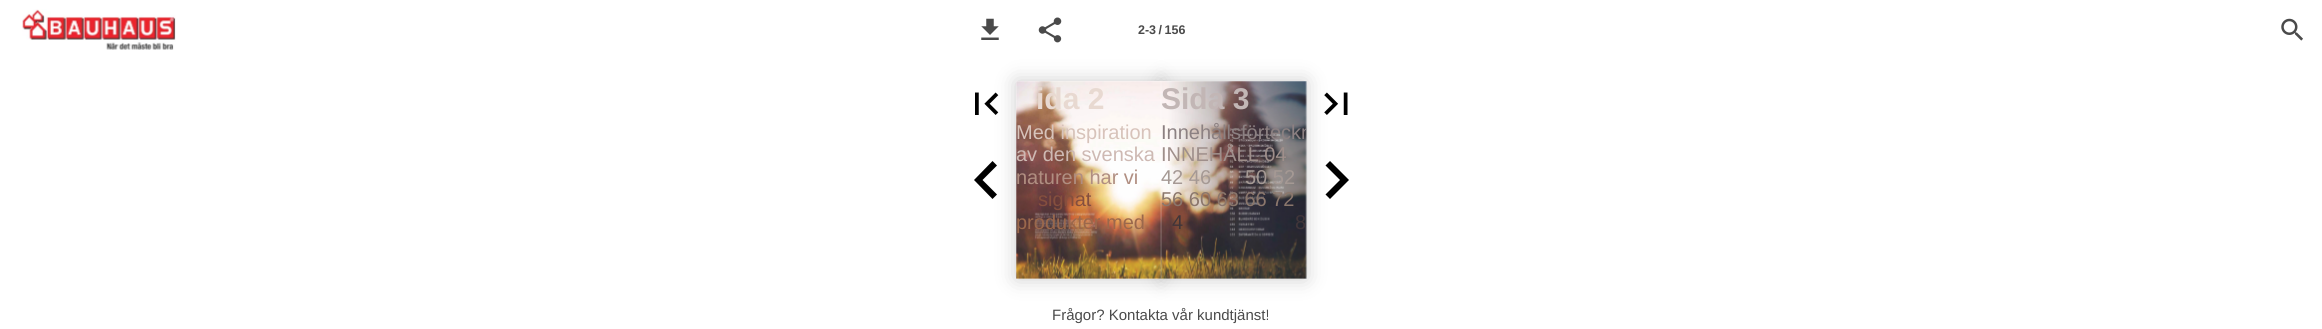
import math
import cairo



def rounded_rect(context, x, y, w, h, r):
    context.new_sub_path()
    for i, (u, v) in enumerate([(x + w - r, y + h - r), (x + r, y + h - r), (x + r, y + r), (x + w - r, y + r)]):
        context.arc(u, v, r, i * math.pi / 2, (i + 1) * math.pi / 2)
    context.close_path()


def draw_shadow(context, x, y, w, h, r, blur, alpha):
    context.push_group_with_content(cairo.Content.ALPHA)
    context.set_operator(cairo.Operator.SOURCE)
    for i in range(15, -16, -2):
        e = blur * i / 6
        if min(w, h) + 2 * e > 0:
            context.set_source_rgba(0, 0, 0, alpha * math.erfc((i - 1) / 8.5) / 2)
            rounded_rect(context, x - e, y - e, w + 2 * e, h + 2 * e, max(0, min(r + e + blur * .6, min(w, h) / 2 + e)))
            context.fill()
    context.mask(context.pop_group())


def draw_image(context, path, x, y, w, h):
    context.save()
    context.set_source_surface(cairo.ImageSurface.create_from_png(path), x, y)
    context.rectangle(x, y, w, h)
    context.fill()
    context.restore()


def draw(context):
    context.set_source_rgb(1, 1, 1)
    context.paint()
    draw_image(context, "images/1.png", 22, 9, 154, 41)
    draw_image(context, "images/2.png", 981, 18, 18, 22)
    draw_image(context, "images/3.png", 1038, 17, 24, 26)
    draw_image(context, "images/4.png", 2281, 18, 22, 23)
    context.set_source_rgb(0, 0, 0)
    draw_shadow(context, 1016, 81, 145, 198, 0, 10, 0.2)
    draw_image(context, "images/5.png", 975, 92, 24, 23)
    context.set_source_rgb(0, 0, 0)
    context.new_path()
    context.move_to(997, 165.5)
    context.line_to(992.5, 161)
    context.line_to(974, 180)
    context.line_to(992.5, 199)
    context.line_to(997, 194.5)
    context.line_to(982.5, 180)
    context.close_path()
    context.fill()
    context.set_source_rgb(0, 0, 0)
    draw_shadow(context, 1161, 81, 145, 198, 0, 10, 0.2)
    context.set_source_rgb(1, 1, 1)
    context.rectangle(1016, 81, 290, 198)
    context.fill()
    draw_image(context, "images/6.png", 1016, 81, 146, 198)
    draw_image(context, "images/7.png", 1161, 81, 146, 198)
    draw_image(context, "images/8.png", 1324, 92, 24, 23)
    context.set_source_rgb(0, 0, 0)
    context.new_path()
    context.move_to(1330, 161)
    context.line_to(1325.5, 165.5)
    context.line_to(1340, 180)
    context.line_to(1325.5, 194.5)
    context.line_to(1330, 199)
    context.line_to(1349, 180)
    context.close_path()
    context.fill()
    context.select_font_face("Liberation Sans", cairo.FontSlant.NORMAL, cairo.FontWeight.BOLD)
    context.set_font_size(12.5)
    context.set_source_rgb(74 / 255, 74 / 255, 74 / 255)
    context.move_to(1138, 34)
    context.show_text("2-3 / 156")
    context.set_font_size(30)
    context.set_source_rgb(232 / 255, 217 / 255, 209 / 255)
    context.move_to(1036, 109)
    context.show_text("ida 2")
    context.select_font_face("Liberation Sans")
    context.set_font_size(20)
    context.set_source_rgb(215 / 255, 195 / 255, 186 / 255)
    context.move_to(1016, 139)
    context.show_text("Med inspiration")
    context.set_source_rgb(206 / 255, 185 / 255, 179 / 255)
    context.move_to(1016, 161)
    context.show_text("av den svenska")
    context.set_source_rgb(176 / 255, 142 / 255, 129 / 255)
    context.move_to(1016, 184)
    context.show_text("naturen har vi")
    context.set_source_rgb(133 / 255, 79 / 255, 62 / 255)
    context.move_to(1038, 206)
    context.show_text("signat")
    context.set_source_rgb(155 / 255, 104 / 255, 76 / 255)
    context.move_to(1016, 229)
    context.show_text("produkter med")
    context.select_font_face("Liberation Sans", cairo.FontSlant.NORMAL, cairo.FontWeight.BOLD)
    context.set_font_size(30)
    context.set_source_rgb(194 / 255, 182 / 255, 181 / 255)
    context.move_to(1161, 109)
    context.show_text("Sida 3")
    context.save()
    context.rectangle(1016, 81, 290, 198)
    context.clip()
    context.select_font_face("Liberation Sans")
    context.set_font_size(20)
    context.set_source_rgb(140 / 255, 129 / 255, 130 / 255)
    context.move_to(1161, 139)
    context.show_text("Innehållsförteckn")
    context.restore()
    context.select_font_face("Liberation Sans")
    context.set_font_size(20)
    context.set_source_rgb(159 / 255, 143 / 255, 139 / 255)
    context.move_to(1161, 161)
    context.show_text("INNEHÅLL 04")
    context.set_source_rgb(165 / 255, 153 / 255, 148 / 255)
    context.move_to(1161, 184)
    context.show_text("42 46")
    context.move_to(1245, 184)
    context.show_text("50 52")
    context.set_source_rgb(139 / 255, 119 / 255, 108 / 255)
    context.move_to(1161, 206)
    context.show_text("56 60 63 66 72")
    context.set_source_rgb(64 / 255, 53 / 255, 57 / 255)
    context.move_to(1172, 229)
    context.show_text("4")
    context.move_to(1295, 229)
    context.show_text("8")
    context.set_font_size(15)
    context.set_source_rgb(74 / 255, 74 / 255, 74 / 255)
    context.move_to(1052, 320)
    context.show_text("Frågor? Kontakta vår kundtjänst!")


surface = cairo.ImageSurface(cairo.Format.RGB24, 2322, 329)
context = cairo.Context(surface)
options = cairo.FontOptions()
options.set_hint_metrics(cairo.HintMetrics.OFF)
options.set_hint_style(cairo.HintStyle.NONE)
context.set_font_options(options)
context.set_miter_limit(4)
draw(context)
surface.write_to_png("out.png")
